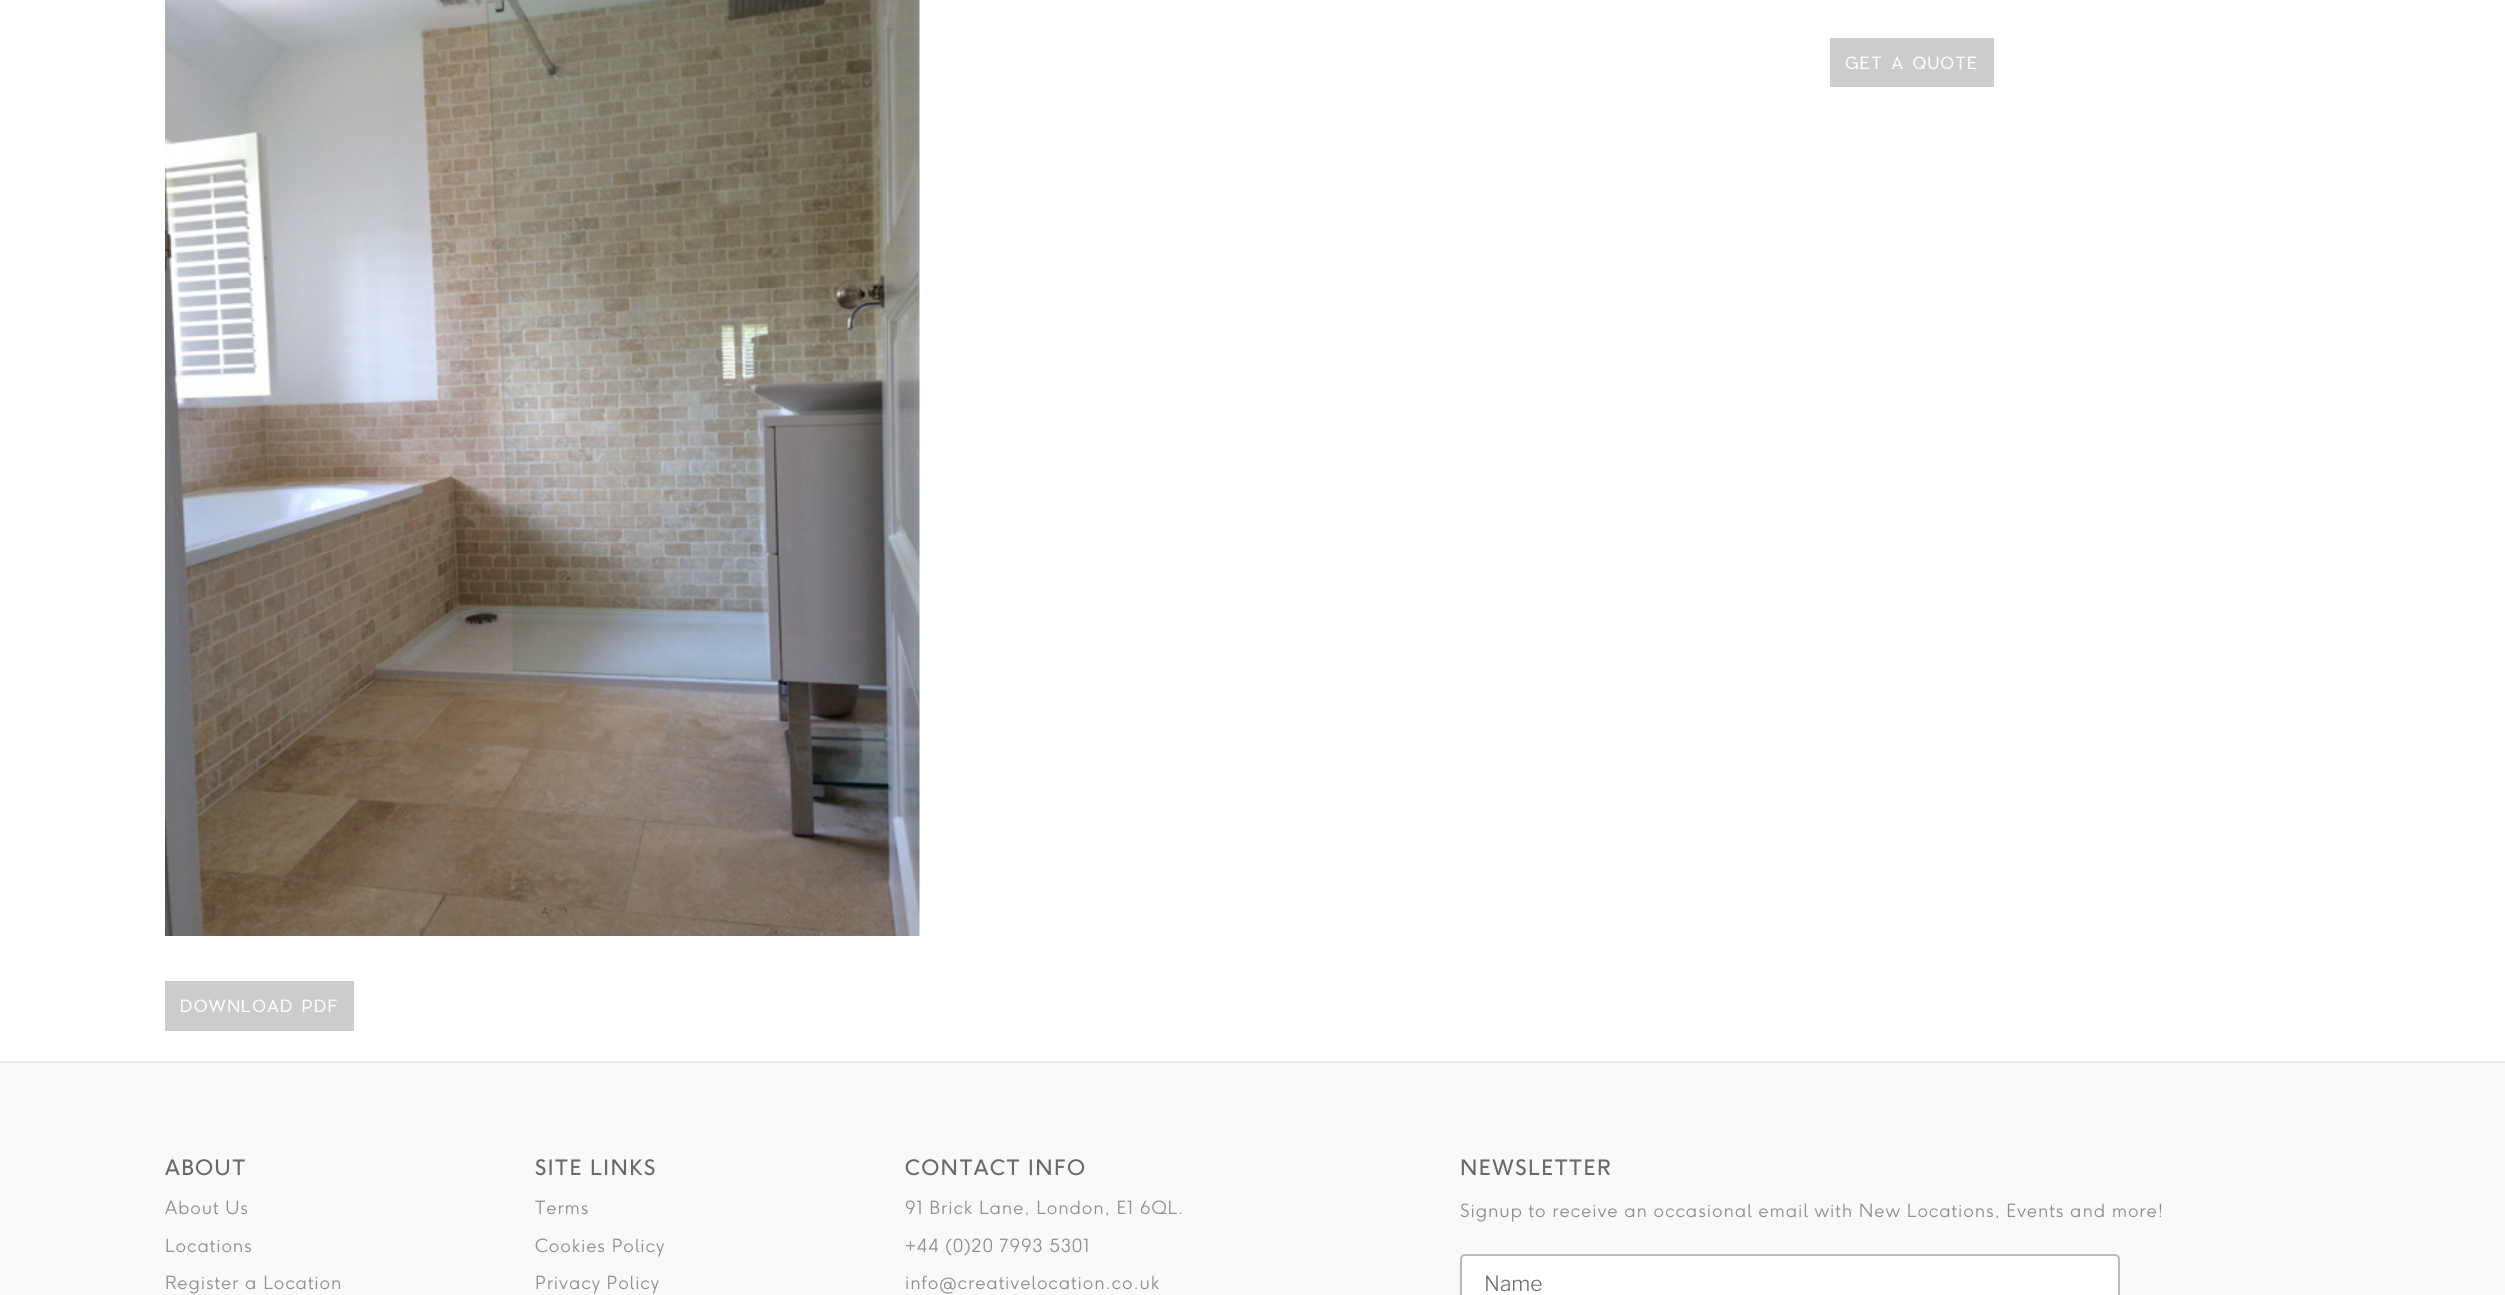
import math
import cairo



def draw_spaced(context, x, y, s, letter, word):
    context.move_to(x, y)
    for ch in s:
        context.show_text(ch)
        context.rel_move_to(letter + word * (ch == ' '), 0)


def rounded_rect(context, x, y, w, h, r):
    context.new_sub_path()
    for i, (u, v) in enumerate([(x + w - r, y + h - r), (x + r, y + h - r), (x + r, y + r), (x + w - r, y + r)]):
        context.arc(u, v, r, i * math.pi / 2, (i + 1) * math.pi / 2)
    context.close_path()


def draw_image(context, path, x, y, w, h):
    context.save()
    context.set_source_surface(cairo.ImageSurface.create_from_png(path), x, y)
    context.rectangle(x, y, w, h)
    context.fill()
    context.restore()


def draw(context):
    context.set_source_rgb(1, 1, 1)
    context.paint()
    context.set_source_rgb(204 / 255, 204 / 255, 204 / 255)
    context.rectangle(1830, 38, 164, 49)
    context.fill()
    draw_image(context, "images/1.png", 165, 0, 755, 936)
    context.rectangle(165, 981, 189, 50)
    context.fill()
    context.set_source_rgb(249 / 255, 249 / 255, 249 / 255)
    context.rectangle(0, 1063, 2505, 232)
    context.fill()
    context.set_source_rgb(237 / 255, 237 / 255, 237 / 255)
    context.rectangle(0, 1061, 2505, 2)
    context.fill()
    context.set_source_rgb(1, 1, 1)
    rounded_rect(context, 1461, 1255, 658, 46, 4)
    context.fill_preserve()
    context.set_source_rgb(187 / 255, 187 / 255, 187 / 255)
    context.stroke()
    context.select_font_face("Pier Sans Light")
    context.set_font_size(16.5)
    context.set_source_rgb(1, 1, 1)
    draw_spaced(context, 1845, 69, "GET A QUOTE", 1.5, 0)
    draw_spaced(context, 180, 1012, "DOWNLOAD PDF", 1.5, 0)
    context.select_font_face("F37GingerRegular")
    context.set_font_size(21)
    context.set_source_rgb(105 / 255, 105 / 255, 105 / 255)
    draw_spaced(context, 165, 1175, "ABOUT", 1.5, 0)
    context.select_font_face("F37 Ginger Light")
    context.set_font_size(18)
    context.set_source_rgb(143 / 255, 143 / 255, 143 / 255)
    draw_spaced(context, 165, 1214, "About Us", 0.9, 0)
    draw_spaced(context, 165, 1252, "Locations", 0.9, 0)
    draw_spaced(context, 165, 1289, "Register a Location", 0.9, 0)
    context.select_font_face("F37GingerRegular")
    context.set_font_size(21)
    context.set_source_rgb(105 / 255, 105 / 255, 105 / 255)
    draw_spaced(context, 535, 1175, "SITE LINKS", 1.5, 0)
    context.select_font_face("F37 Ginger Light")
    context.set_font_size(18)
    context.set_source_rgb(143 / 255, 143 / 255, 143 / 255)
    draw_spaced(context, 535, 1214, "Terms", 0.9, 0)
    draw_spaced(context, 535, 1252, "Cookies Policy", 0.9, 0)
    draw_spaced(context, 535, 1289, "Privacy Policy", 0.9, 0)
    context.select_font_face("F37GingerRegular")
    context.set_font_size(21)
    context.set_source_rgb(105 / 255, 105 / 255, 105 / 255)
    draw_spaced(context, 905, 1175, "CONTACT INFO", 1.5, 0)
    context.select_font_face("F37 Ginger Light")
    context.set_font_size(18)
    context.set_source_rgb(143 / 255, 143 / 255, 143 / 255)
    draw_spaced(context, 905, 1214, "91 Brick Lane, London, E1 6QL.", 0.9, 0)
    draw_spaced(context, 905, 1252, "+44 (0)20 7993 5301", 0.9, 0)
    draw_spaced(context, 905, 1289, "info@creativelocation.co.uk", 0.9, 0)
    context.select_font_face("F37GingerRegular")
    context.set_font_size(21)
    context.set_source_rgb(105 / 255, 105 / 255, 105 / 255)
    draw_spaced(context, 1460, 1175, "NEWSLETTER", 1.5, 0)
    context.select_font_face("F37 Ginger Light")
    context.set_font_size(18)
    context.set_source_rgb(143 / 255, 143 / 255, 143 / 255)
    draw_spaced(context, 1460, 1217, "Signup to receive an occasional email with New Locations, Events and more!", 0.9, 0)
    context.select_font_face("Libre Franklin Thin")
    context.set_font_size(21)
    context.set_source_rgb(105 / 255, 105 / 255, 105 / 255)
    context.move_to(1484, 1291)
    context.show_text("Name")


surface = cairo.ImageSurface(cairo.Format.RGB24, 2505, 1295)
context = cairo.Context(surface)
options = cairo.FontOptions()
options.set_hint_metrics(cairo.HintMetrics.OFF)
options.set_hint_style(cairo.HintStyle.NONE)
context.set_font_options(options)
context.set_miter_limit(4)
draw(context)
surface.write_to_png("out.png")
